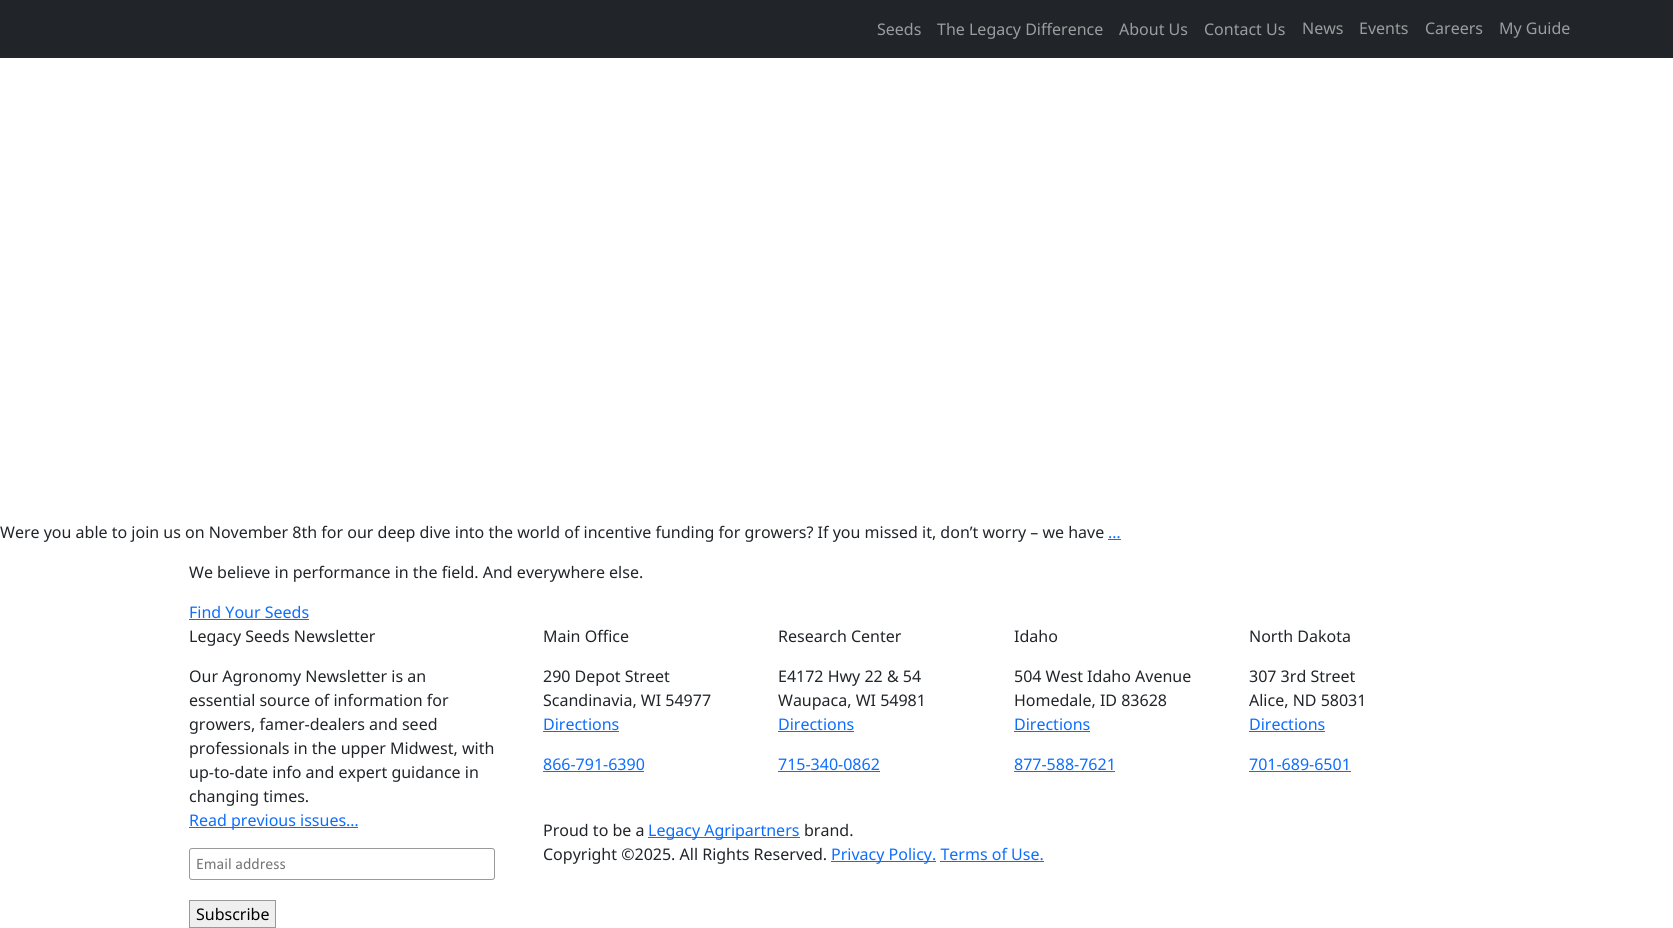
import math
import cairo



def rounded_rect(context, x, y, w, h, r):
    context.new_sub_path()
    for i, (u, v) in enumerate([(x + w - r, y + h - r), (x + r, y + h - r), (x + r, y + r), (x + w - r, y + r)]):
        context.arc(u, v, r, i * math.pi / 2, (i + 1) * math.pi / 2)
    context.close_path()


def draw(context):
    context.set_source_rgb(1, 1, 1)
    context.paint()
    context.set_source_rgb(33 / 255, 37 / 255, 41 / 255)
    context.rectangle(0, 0, 1673, 58)
    context.fill()
    context.set_source_rgb(13 / 255, 110 / 255, 253 / 255)
    context.rectangle(1108, 539, 13, 1)
    context.fill()
    context.rectangle(189, 619, 120, 1)
    context.fill()
    context.rectangle(189, 827, 169, 1)
    context.fill()
    rounded_rect(context, 189.5, 848.5, 305, 31, 2.5)
    context.set_source_rgb(153 / 255, 153 / 255, 153 / 255)
    context.set_line_width(1)
    context.stroke()
    context.set_source_rgb(239 / 255, 239 / 255, 239 / 255)
    context.rectangle(189.5, 900.5, 86, 27)
    context.fill_preserve()
    context.set_source_rgb(153 / 255, 153 / 255, 153 / 255)
    context.stroke()
    context.set_source_rgb(13 / 255, 110 / 255, 253 / 255)
    context.rectangle(543, 731, 76, 1)
    context.fill()
    context.rectangle(543, 771, 101, 1)
    context.fill()
    context.rectangle(778, 731, 76, 1)
    context.fill()
    context.rectangle(778, 771, 102, 1)
    context.fill()
    context.rectangle(1014, 731, 76, 1)
    context.fill()
    context.rectangle(1014, 771, 101, 1)
    context.fill()
    context.rectangle(1249, 731, 76, 1)
    context.fill()
    context.rectangle(1249, 771, 102, 1)
    context.fill()
    context.rectangle(648, 837, 152, 1)
    context.fill()
    context.rectangle(831, 861, 105, 1)
    context.fill()
    context.rectangle(940, 861, 104, 1)
    context.fill()
    context.select_font_face("Noto Sans")
    context.set_font_size(16)
    context.set_source_rgb(155 / 255, 157 / 255, 159 / 255)
    context.move_to(877, 35)
    context.show_text("Seeds")
    context.move_to(937, 35)
    context.show_text("The Legacy Difference")
    context.move_to(1119, 35)
    context.show_text("About Us")
    context.move_to(1204, 35)
    context.show_text("Contact Us")
    context.move_to(1302, 34)
    context.show_text("News")
    context.move_to(1359, 34)
    context.show_text("Events")
    context.move_to(1425, 34)
    context.show_text("Careers")
    context.move_to(1499, 34)
    context.show_text("My Guide")
    context.set_source_rgb(33 / 255, 37 / 255, 41 / 255)
    context.move_to(0, 538)
    context.show_text("Were you able to join us on November 8th for our deep dive into the world of incentive funding for growers? If you missed it, don’t worry – we have")
    context.set_source_rgb(13 / 255, 110 / 255, 253 / 255)
    context.move_to(1108, 538)
    context.show_text("…")
    context.set_source_rgb(33 / 255, 37 / 255, 41 / 255)
    context.move_to(189, 578)
    context.show_text("We believe in performance in the field. And everywhere else.")
    context.set_source_rgb(13 / 255, 110 / 255, 253 / 255)
    context.move_to(189, 618)
    context.show_text("Find Your Seeds")
    context.set_source_rgb(33 / 255, 37 / 255, 41 / 255)
    context.move_to(189, 642)
    context.show_text("Legacy Seeds Newsletter")
    context.move_to(189, 682)
    context.show_text("Our Agronomy Newsletter is an")
    context.move_to(189, 706)
    context.show_text("essential source of information for")
    context.move_to(189, 730)
    context.show_text("growers, famer-dealers and seed")
    context.move_to(189, 754)
    context.show_text("professionals in the upper Midwest, with")
    context.move_to(189, 778)
    context.show_text("up-to-date info and expert guidance in")
    context.move_to(189, 802)
    context.show_text("changing times.")
    context.set_source_rgb(13 / 255, 110 / 255, 253 / 255)
    context.move_to(189, 826)
    context.show_text("Read previous issues…")
    context.select_font_face("Calibri")
    context.set_source_rgb(117 / 255, 117 / 255, 117 / 255)
    context.move_to(196, 869)
    context.show_text("Email address")
    context.select_font_face("Noto Sans")
    context.set_source_rgb(0, 0, 0)
    context.move_to(196, 920)
    context.show_text("Subscribe")
    context.set_source_rgb(33 / 255, 37 / 255, 41 / 255)
    context.move_to(543, 642)
    context.show_text("Main Office")
    context.move_to(543, 682)
    context.show_text("290 Depot Street")
    context.move_to(543, 706)
    context.show_text("Scandinavia, WI 54977")
    context.set_source_rgb(13 / 255, 110 / 255, 253 / 255)
    context.move_to(543, 730)
    context.show_text("Directions")
    context.move_to(543, 770)
    context.show_text("866-791-6390")
    context.set_source_rgb(33 / 255, 37 / 255, 41 / 255)
    context.move_to(778, 642)
    context.show_text("Research Center")
    context.move_to(778, 682)
    context.show_text("E4172 Hwy 22 & 54")
    context.move_to(778, 706)
    context.show_text("Waupaca, WI 54981")
    context.set_source_rgb(13 / 255, 110 / 255, 253 / 255)
    context.move_to(778, 730)
    context.show_text("Directions")
    context.move_to(778, 770)
    context.show_text("715-340-0862")
    context.set_source_rgb(33 / 255, 37 / 255, 41 / 255)
    context.move_to(1014, 642)
    context.show_text("Idaho")
    context.move_to(1014, 682)
    context.show_text("504 West Idaho Avenue")
    context.move_to(1014, 706)
    context.show_text("Homedale, ID 83628")
    context.set_source_rgb(13 / 255, 110 / 255, 253 / 255)
    context.move_to(1014, 730)
    context.show_text("Directions")
    context.move_to(1014, 770)
    context.show_text("877-588-7621")
    context.set_source_rgb(33 / 255, 37 / 255, 41 / 255)
    context.move_to(1249, 642)
    context.show_text("North Dakota")
    context.move_to(1249, 682)
    context.show_text("307 3rd Street")
    context.move_to(1249, 706)
    context.show_text("Alice, ND 58031")
    context.set_source_rgb(13 / 255, 110 / 255, 253 / 255)
    context.move_to(1249, 730)
    context.show_text("Directions")
    context.move_to(1249, 770)
    context.show_text("701-689-6501")
    context.set_source_rgb(33 / 255, 37 / 255, 41 / 255)
    context.move_to(543, 836)
    context.show_text("Proud to be a")
    context.set_source_rgb(13 / 255, 110 / 255, 253 / 255)
    context.move_to(648, 836)
    context.show_text("Legacy Agripartners")
    context.set_source_rgb(33 / 255, 37 / 255, 41 / 255)
    context.move_to(804, 836)
    context.show_text("brand.")
    context.move_to(543, 860)
    context.show_text("Copyright ©2025. All Rights Reserved.")
    context.set_source_rgb(13 / 255, 110 / 255, 253 / 255)
    context.move_to(831, 860)
    context.show_text("Privacy Policy. Terms of Use.")


surface = cairo.ImageSurface(cairo.Format.RGB24, 1673, 928)
context = cairo.Context(surface)
options = cairo.FontOptions()
options.set_hint_metrics(cairo.HintMetrics.OFF)
options.set_hint_style(cairo.HintStyle.NONE)
context.set_font_options(options)
context.set_miter_limit(4)
draw(context)
surface.write_to_png("out.png")
